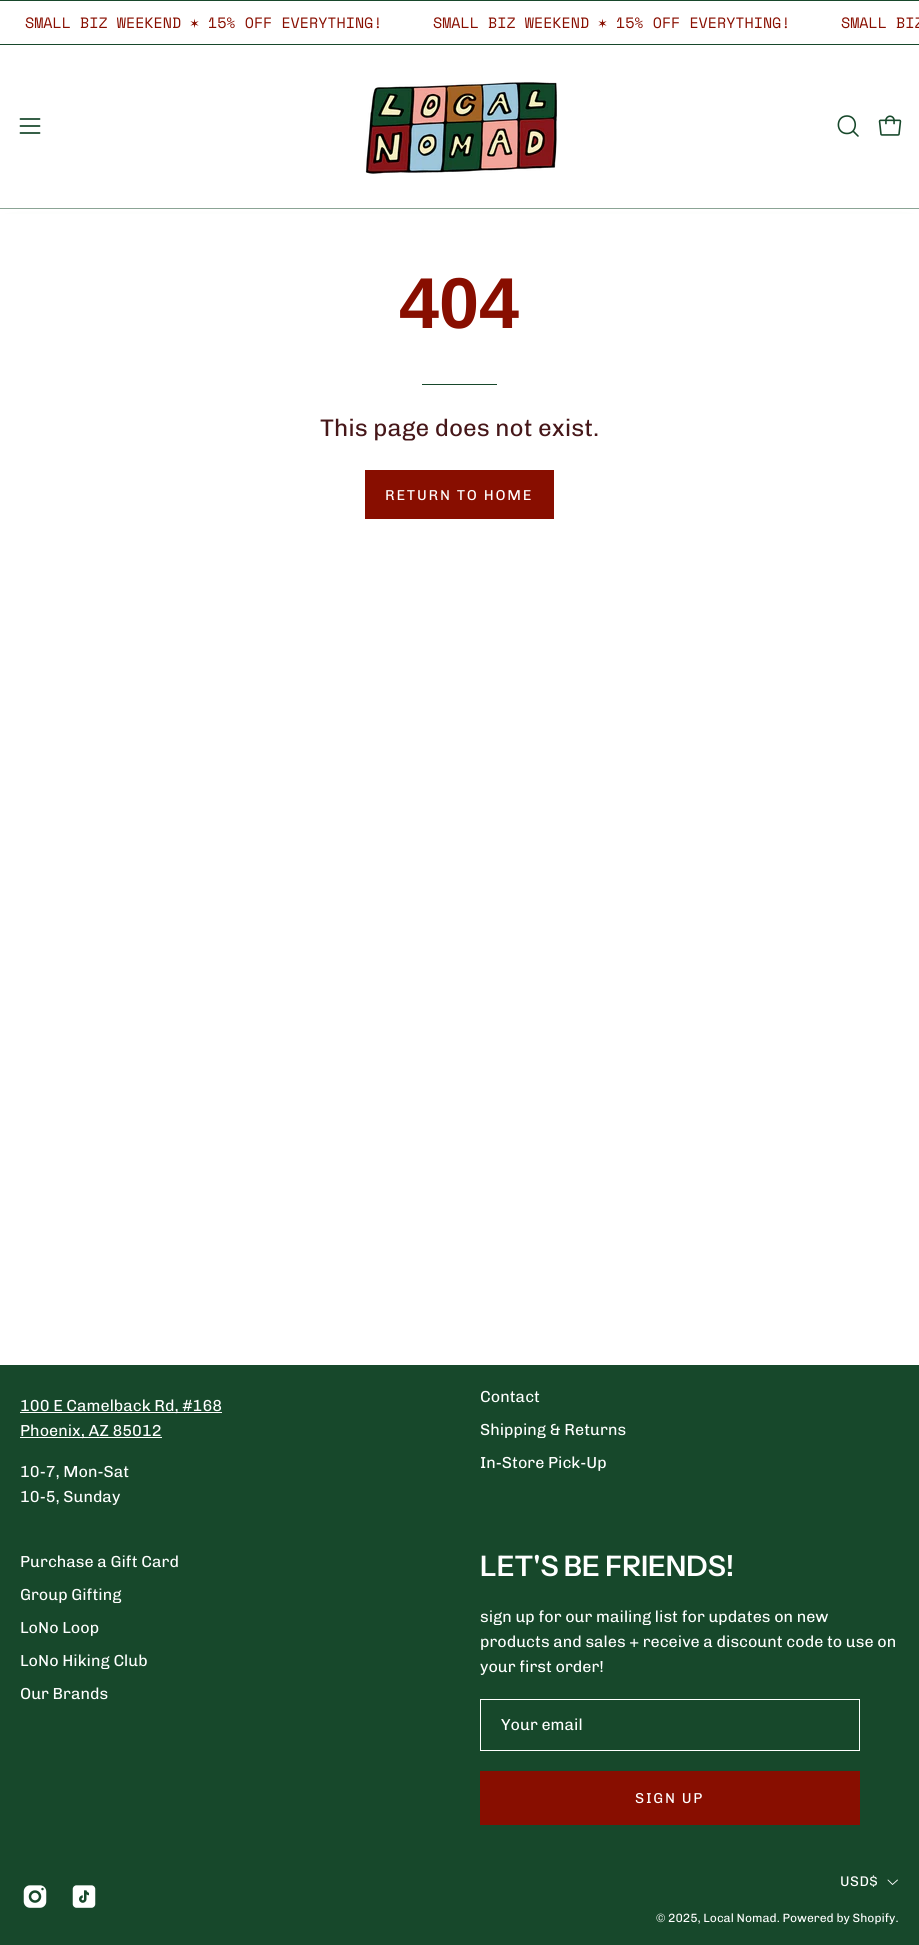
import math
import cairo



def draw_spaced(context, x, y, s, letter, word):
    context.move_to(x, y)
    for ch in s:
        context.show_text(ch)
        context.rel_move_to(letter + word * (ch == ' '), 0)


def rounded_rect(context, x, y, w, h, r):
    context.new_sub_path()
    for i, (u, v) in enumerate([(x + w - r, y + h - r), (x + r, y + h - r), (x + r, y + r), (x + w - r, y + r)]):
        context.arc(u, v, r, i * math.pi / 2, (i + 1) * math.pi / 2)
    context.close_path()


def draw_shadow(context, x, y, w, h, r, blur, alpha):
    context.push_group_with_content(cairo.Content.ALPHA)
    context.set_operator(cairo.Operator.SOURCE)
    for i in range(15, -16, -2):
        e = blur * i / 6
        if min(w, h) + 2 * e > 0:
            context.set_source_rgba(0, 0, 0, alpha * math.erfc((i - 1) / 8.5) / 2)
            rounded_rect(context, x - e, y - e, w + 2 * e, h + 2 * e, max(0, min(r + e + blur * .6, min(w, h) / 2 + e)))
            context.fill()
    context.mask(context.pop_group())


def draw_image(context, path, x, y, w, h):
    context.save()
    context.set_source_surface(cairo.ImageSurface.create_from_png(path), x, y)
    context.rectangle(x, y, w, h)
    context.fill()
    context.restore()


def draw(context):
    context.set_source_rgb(1, 1, 1)
    context.paint()
    context.set_source_rgb(23 / 255, 72 / 255, 43 / 255)
    context.rectangle(0, 0, 919, 1)
    context.fill()
    context.rectangle(0, 44, 919, 1)
    context.fill()
    context.new_path()
    context.move_to(20.5, 126)
    context.line_to(39.5, 126)
    context.move_to(20.5, 119)
    context.line_to(39.5, 119)
    context.move_to(20.5, 133)
    context.line_to(39.5, 133)
    context.set_line_width(1.8)
    context.set_line_cap(cairo.LineCap.ROUND)
    context.set_line_join(cairo.LineJoin.ROUND)
    context.stroke()
    draw_image(context, "images/1.png", 365, 82, 192, 92)
    context.new_path()
    context.move_to(847, 133.5)
    context.curve_to(858, 133.5, 858, 116, 847, 116)
    context.curve_to(835.5, 116, 835.5, 133.5, 847, 133.5)
    context.close_path()
    context.move_to(853, 131)
    context.line_to(858, 136)
    context.set_line_width(1.6)
    context.stroke()
    draw_image(context, "images/2.png", 878, 115, 24, 21)
    context.rectangle(0, 1365, 919, 580)
    context.fill()
    context.set_source_rgb(1, 1, 1)
    context.rectangle(20, 1412, 202, 1)
    context.fill()
    context.set_source_rgb(23 / 255, 72 / 255, 43 / 255)
    draw_shadow(context, 10, 243, 899, 1137, 0, 12.5, 1)
    context.set_source_rgb(139 / 255, 164 / 255, 149 / 255)
    context.rectangle(0, 208, 919, 1)
    context.fill()
    context.set_source_rgb(1, 1, 1)
    context.rectangle(0, 214, 919, 1151)
    context.fill()
    context.set_source_rgb(23 / 255, 72 / 255, 43 / 255)
    context.rectangle(422, 384, 75, 1)
    context.fill()
    context.set_source_rgb(136 / 255, 14 / 255, 0)
    context.rectangle(365, 470, 189, 49)
    context.fill()
    context.set_source_rgb(1, 1, 1)
    context.rectangle(20, 1437, 142, 1)
    context.fill()
    context.rectangle(480.5, 1699.5, 379, 51)
    context.set_line_width(1)
    context.set_line_cap(cairo.LineCap.BUTT)
    context.set_line_join(cairo.LineJoin.MITER)
    context.stroke()
    context.set_source_rgb(136 / 255, 14 / 255, 0)
    context.rectangle(480, 1771, 380, 54)
    context.fill()
    draw_image(context, "images/3.png", 23, 1885, 24, 23)
    draw_image(context, "images/4.png", 72, 1885, 24, 23)
    context.new_path()
    context.move_to(897.5, 1880)
    context.line_to(892.5, 1884.5)
    context.line_to(888, 1880)
    context.set_source_rgb(1, 1, 1)
    context.set_line_width(0.9)
    context.set_line_cap(cairo.LineCap.ROUND)
    context.set_line_join(cairo.LineJoin.ROUND)
    context.stroke()
    context.select_font_face("Space Mono")
    context.set_font_size(15)
    context.set_source_rgb(136 / 255, 14 / 255, 0)
    context.move_to(25, 28)
    context.show_text("SMALL BIZ WEEKEND")
    context.select_font_face("DejaVu Sans Mono")
    context.move_to(190, 28)
    context.show_text("✶")
    context.select_font_face("Space Mono")
    context.move_to(208, 28)
    context.show_text("15% OFF EVERYTHING!")
    context.move_to(433, 28)
    context.show_text("SMALL BIZ WEEKEND")
    context.select_font_face("DejaVu Sans Mono")
    context.move_to(598, 28)
    context.show_text("✶")
    context.select_font_face("Space Mono")
    context.move_to(616, 28)
    context.show_text("15% OFF EVERYTHING!")
    context.move_to(841, 28)
    context.show_text("SMALL BIZ")
    context.select_font_face("Liberation Sans", cairo.FontSlant.NORMAL, cairo.FontWeight.BOLD)
    context.set_font_size(72)
    context.move_to(399, 328)
    context.show_text("404")
    context.select_font_face("Chivo")
    context.set_font_size(24)
    context.set_source_rgb(70 / 255, 23 / 255, 25 / 255)
    context.move_to(320, 436)
    context.show_text("This page does not exist.")
    context.set_font_size(14.4)
    context.set_source_rgb(1, 1, 1)
    draw_spaced(context, 385, 500, "RETURN TO HOME", 1.75, 0)
    context.set_font_size(16)
    context.move_to(20, 1411)
    context.show_text("100 E Camelback Rd, #168")
    context.move_to(20, 1436)
    context.show_text("Phoenix, AZ 85012")
    context.move_to(20, 1477)
    context.show_text("10-7, Mon-Sat")
    context.move_to(20, 1502)
    context.show_text("10-5, Sunday")
    context.move_to(480, 1402)
    context.show_text("Contact")
    context.move_to(480, 1435)
    context.show_text("Shipping & Returns")
    context.move_to(480, 1468)
    context.show_text("In-Store Pick-Up")
    context.move_to(20, 1567)
    context.show_text("Purchase a Gift Card")
    context.move_to(20, 1600)
    context.show_text("Group Gifting")
    context.move_to(20, 1633)
    context.show_text("LoNo Loop")
    context.move_to(20, 1666)
    context.show_text("LoNo Hiking Club")
    context.move_to(20, 1699)
    context.show_text("Our Brands")
    context.select_font_face("Instrument Sans SemiBold")
    context.set_font_size(28.25)
    context.move_to(480, 1576)
    context.show_text("LET'S BE FRIENDS!")
    context.select_font_face("Chivo")
    context.set_font_size(16)
    context.move_to(480, 1622)
    context.show_text("sign up for our mailing list for updates on new")
    context.move_to(480, 1647)
    context.show_text("products and sales + receive a discount code to use on")
    context.move_to(480, 1672)
    context.show_text("your first order!")
    context.move_to(501, 1730)
    context.show_text("Your email")
    context.set_font_size(14.4)
    draw_spaced(context, 635, 1803, "SIGN UP", 1.75, 0)
    context.set_font_size(14)
    draw_spaced(context, 840, 1886, "USD$", 0.5, 0)
    context.set_font_size(12)
    context.move_to(656, 1922)
    context.show_text("© 2025, Local Nomad. Powered by Shopify.")


surface = cairo.ImageSurface(cairo.Format.RGB24, 919, 1945)
context = cairo.Context(surface)
options = cairo.FontOptions()
options.set_hint_metrics(cairo.HintMetrics.OFF)
options.set_hint_style(cairo.HintStyle.NONE)
context.set_font_options(options)
context.set_miter_limit(4)
draw(context)
surface.write_to_png("out.png")
